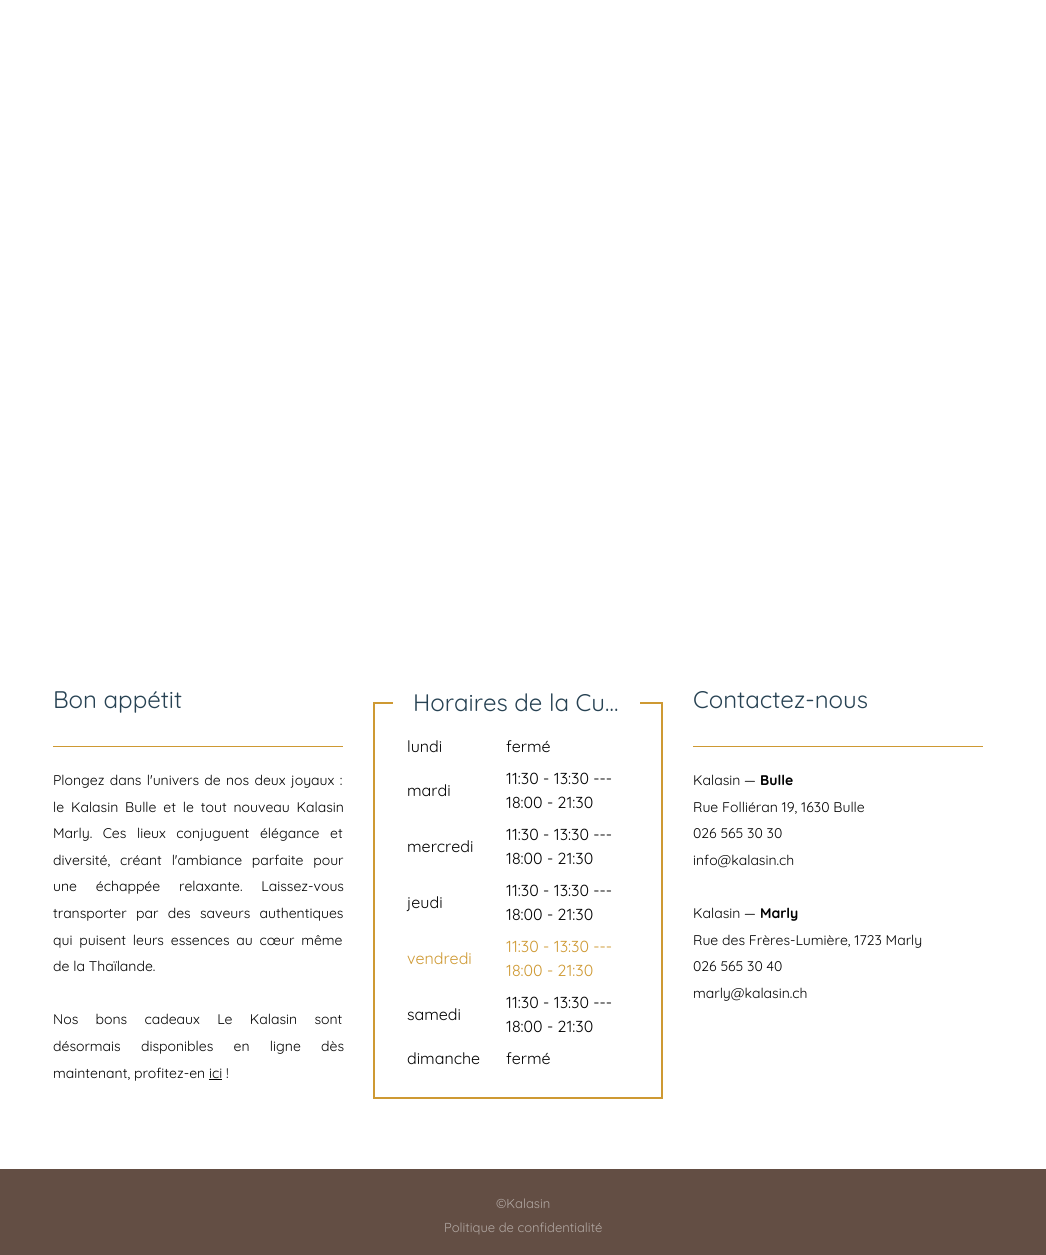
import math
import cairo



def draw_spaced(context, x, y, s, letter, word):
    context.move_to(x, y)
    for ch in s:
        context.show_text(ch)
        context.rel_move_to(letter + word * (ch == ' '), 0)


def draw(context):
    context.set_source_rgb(1, 1, 1)
    context.paint()
    context.set_source_rgb(206 / 255, 153 / 255, 51 / 255)
    context.rectangle(53, 746, 290, 1)
    context.fill()
    context.set_source_rgb(0, 0, 0)
    context.rectangle(209, 1079, 13, 1)
    context.fill()
    context.set_source_rgb(206 / 255, 153 / 255, 51 / 255)
    context.rectangle(373, 702, 20, 2)
    context.fill()
    context.rectangle(640, 702, 23, 2)
    context.fill()
    context.rectangle(661, 702, 2, 397)
    context.fill()
    context.rectangle(373, 1097, 290, 2)
    context.fill()
    context.rectangle(373, 702, 2, 397)
    context.fill()
    context.rectangle(693, 746, 290, 1)
    context.fill()
    context.set_source_rgb(99 / 255, 78 / 255, 68 / 255)
    context.rectangle(0, 1169, 1046, 86)
    context.fill()
    context.select_font_face("Quicksand")
    context.set_font_size(24)
    context.set_source_rgb(39 / 255, 66 / 255, 83 / 255)
    context.move_to(53, 708)
    context.show_text("Bon appétit")
    context.set_font_size(14)
    context.set_source_rgb(0, 0, 0)
    draw_spaced(context, 53, 785, "Plongez dans l'univers de nos deux joyaux :", 0, 1.5)
    draw_spaced(context, 53, 812, "le Kalasin Bulle et le tout nouveau Kalasin", 0, 3)
    draw_spaced(context, 53, 838, "Marly. Ces lieux conjuguent élégance et", 0, 6.75)
    draw_spaced(context, 53, 865, "diversité, créant l'ambiance parfaite pour", 0, 6)
    draw_spaced(context, 53, 891, "une échappée relaxante. Laissez-vous", 0, 15)
    draw_spaced(context, 53, 918, "transporter par des saveurs authentiques", 0, 5.5)
    draw_spaced(context, 53, 945, "qui puisent leurs essences au cœur même", 0, 3)
    context.move_to(53, 971)
    context.show_text("de la Thaïlande.")
    draw_spaced(context, 53, 1024, "Nos bons cadeaux Le Kalasin sont", 0, 13.5)
    draw_spaced(context, 53, 1051, "désormais disponibles en ligne dès", 0, 16.5)
    context.move_to(53, 1078)
    context.show_text("maintenant, profitez-en ici !")
    context.set_font_size(24)
    context.set_source_rgb(39 / 255, 66 / 255, 83 / 255)
    context.move_to(413, 711)
    context.show_text("Horaires de la Cu…")
    context.set_font_size(16)
    context.set_source_rgb(0, 0, 0)
    context.move_to(407, 752)
    context.show_text("lundi")
    context.move_to(506, 752)
    context.show_text("fermé")
    context.move_to(407, 796)
    context.show_text("mardi")
    context.move_to(506, 784)
    context.show_text("11:30 - 13:30 ---")
    context.move_to(506, 808)
    context.show_text("18:00 - 21:30")
    context.move_to(407, 852)
    context.show_text("mercredi")
    context.move_to(506, 840)
    context.show_text("11:30 - 13:30 ---")
    context.move_to(506, 864)
    context.show_text("18:00 - 21:30")
    context.move_to(407, 908)
    context.show_text("jeudi")
    context.move_to(506, 896)
    context.show_text("11:30 - 13:30 ---")
    context.move_to(506, 920)
    context.show_text("18:00 - 21:30")
    context.set_source_rgb(206 / 255, 153 / 255, 51 / 255)
    context.move_to(407, 964)
    context.show_text("vendredi")
    context.move_to(506, 952)
    context.show_text("11:30 - 13:30 ---")
    context.move_to(506, 976)
    context.show_text("18:00 - 21:30")
    context.set_source_rgb(0, 0, 0)
    context.move_to(407, 1020)
    context.show_text("samedi")
    context.move_to(506, 1008)
    context.show_text("11:30 - 13:30 ---")
    context.move_to(506, 1032)
    context.show_text("18:00 - 21:30")
    context.move_to(407, 1064)
    context.show_text("dimanche")
    context.move_to(506, 1064)
    context.show_text("fermé")
    context.set_font_size(24)
    context.set_source_rgb(39 / 255, 66 / 255, 83 / 255)
    context.move_to(693, 708)
    context.show_text("Contactez-nous")
    context.set_font_size(14)
    context.set_source_rgb(0, 0, 0)
    context.move_to(693, 785)
    context.show_text("Kalasin —")
    context.select_font_face("Quicksand", cairo.FontSlant.NORMAL, cairo.FontWeight.BOLD)
    context.move_to(760, 785)
    context.show_text("Bulle")
    context.select_font_face("Quicksand")
    context.move_to(693, 812)
    context.show_text("Rue Folliéran 19, 1630 Bulle")
    context.move_to(693, 838)
    context.show_text("026 565 30 30")
    context.move_to(693, 865)
    context.show_text("info@kalasin.ch")
    context.move_to(693, 918)
    context.show_text("Kalasin —")
    context.select_font_face("Quicksand", cairo.FontSlant.NORMAL, cairo.FontWeight.BOLD)
    context.move_to(760, 918)
    context.show_text("Marly")
    context.select_font_face("Quicksand")
    context.move_to(693, 945)
    context.show_text("Rue des Frères-Lumière, 1723 Marly")
    context.move_to(693, 971)
    context.show_text("026 565 30 40")
    context.move_to(693, 998)
    context.show_text("marly@kalasin.ch")
    context.set_font_size(13)
    context.set_source_rgb(177 / 255, 167 / 255, 162 / 255)
    context.move_to(496, 1208)
    context.show_text("©Kalasin")
    context.move_to(444, 1232)
    context.show_text("Politique de confidentialité")


surface = cairo.ImageSurface(cairo.Format.RGB24, 1046, 1255)
context = cairo.Context(surface)
options = cairo.FontOptions()
options.set_hint_metrics(cairo.HintMetrics.OFF)
options.set_hint_style(cairo.HintStyle.NONE)
context.set_font_options(options)
context.set_miter_limit(4)
draw(context)
surface.write_to_png("out.png")
